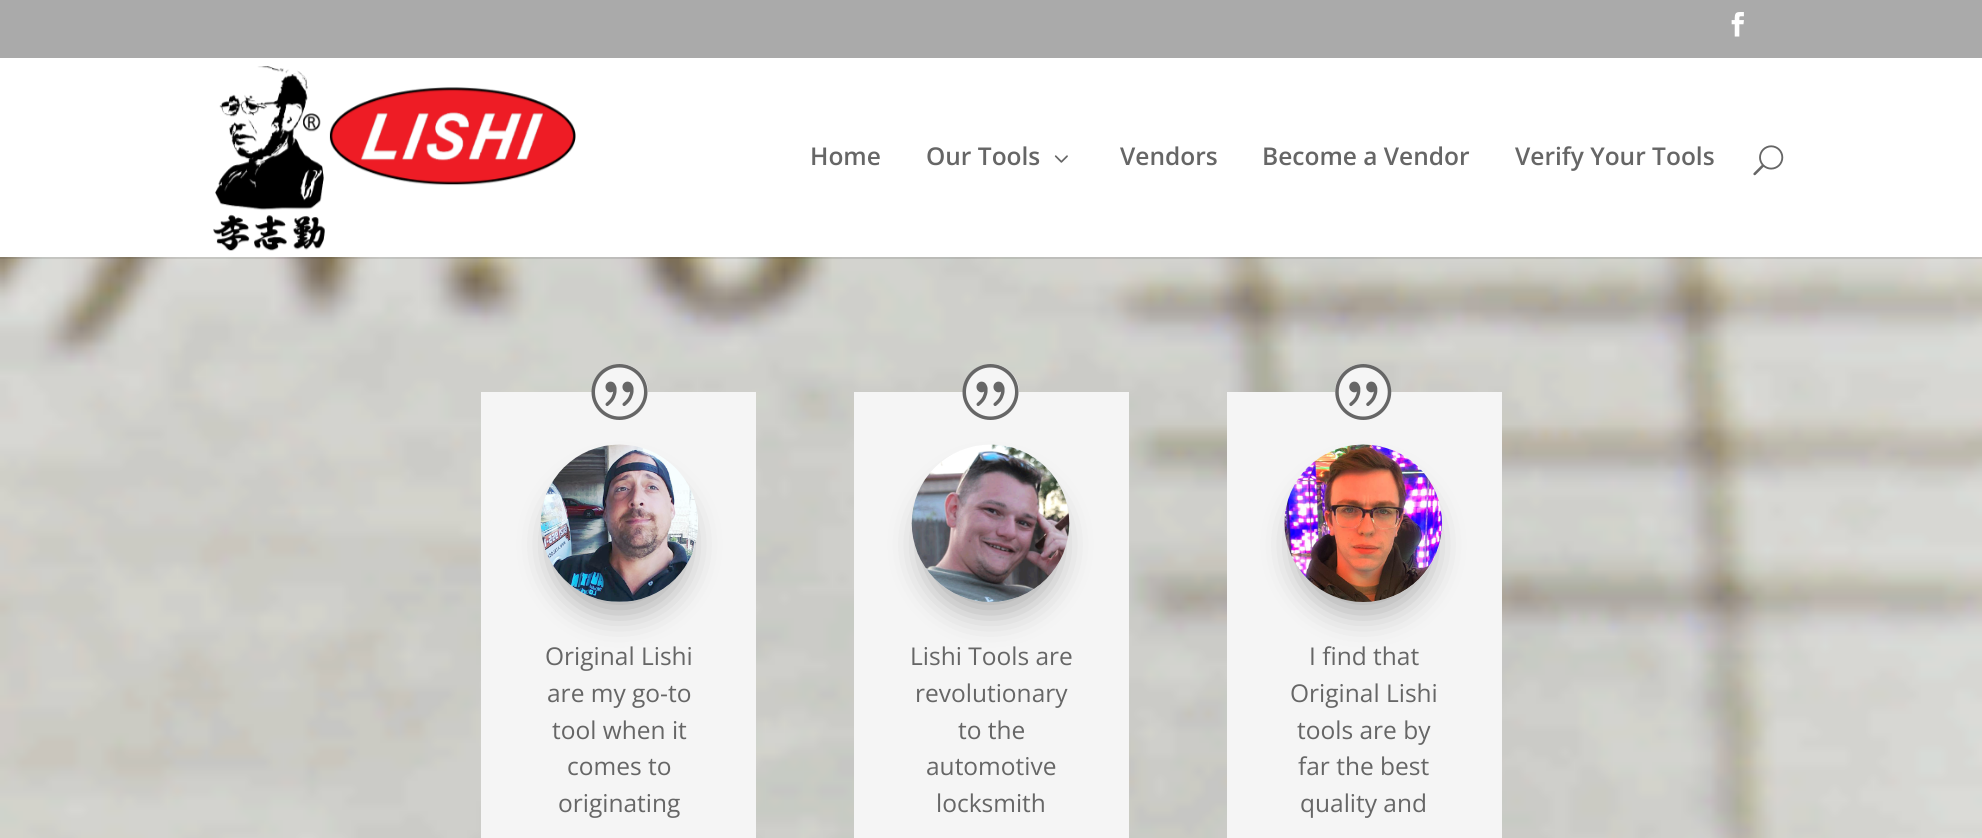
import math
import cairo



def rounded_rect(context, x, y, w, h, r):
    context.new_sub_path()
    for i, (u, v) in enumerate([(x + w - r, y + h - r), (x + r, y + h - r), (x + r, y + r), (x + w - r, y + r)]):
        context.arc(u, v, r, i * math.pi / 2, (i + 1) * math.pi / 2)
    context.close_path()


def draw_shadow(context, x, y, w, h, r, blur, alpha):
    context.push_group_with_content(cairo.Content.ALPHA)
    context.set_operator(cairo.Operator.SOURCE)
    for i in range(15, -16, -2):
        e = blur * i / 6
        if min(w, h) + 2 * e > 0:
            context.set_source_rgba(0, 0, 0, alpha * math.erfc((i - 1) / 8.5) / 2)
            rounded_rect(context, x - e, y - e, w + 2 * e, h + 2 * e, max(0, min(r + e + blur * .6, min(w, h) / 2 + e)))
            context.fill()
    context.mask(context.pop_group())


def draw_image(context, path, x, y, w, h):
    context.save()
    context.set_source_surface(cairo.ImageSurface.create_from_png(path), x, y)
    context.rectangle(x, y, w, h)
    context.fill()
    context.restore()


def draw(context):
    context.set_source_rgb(1, 1, 1)
    context.paint()
    context.set_source_rgb(170 / 255, 170 / 255, 170 / 255)
    context.rectangle(0, 0, 1982, 58)
    context.fill()
    draw_image(context, "images/1.png", 1731, 12, 13, 25)
    draw_image(context, "images/5.png", 0, 257, 1982, 581)
    context.set_source_rgba(0, 0, 0, 0.1)
    context.new_path()
    context.move_to(0, 257)
    context.line_to(0, 259)
    context.line_to(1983, 259)
    context.line_to(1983, 60)
    context.line_to(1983, 257)
    context.close_path()
    context.fill()
    draw_image(context, "images/2.png", 213, 66, 363, 185)
    draw_image(context, "images/3.png", 1054, 155, 14, 8)
    draw_image(context, "images/4.png", 1753, 145, 31, 31)
    context.set_source_rgb(245 / 255, 245 / 255, 245 / 255)
    context.rectangle(481, 392, 275, 446)
    context.fill()
    context.arc(620, 392, 28, 0, 2 * math.pi)
    context.fill()
    draw_image(context, "images/6.png", 591, 364, 57, 56)
    draw_image(context, "images/7.png", 540, 444, 158, 158)
    context.save()
    context.set_fill_rule(cairo.FillRule.EVEN_ODD)
    context.new_path()
    context.move_to(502, 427)
    context.line_to(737, 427)
    context.line_to(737, 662)
    context.line_to(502, 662)
    context.close_path()
    context.move_to(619.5, 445)
    context.curve_to(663, 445, 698, 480, 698, 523.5)
    context.curve_to(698, 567, 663, 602, 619.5, 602)
    context.curve_to(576, 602, 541, 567, 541, 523.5)
    context.curve_to(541, 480, 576, 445, 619.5, 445)
    context.close_path()
    context.clip()
    context.set_source_rgb(0, 0, 0)
    draw_shadow(context, 551, 476, 137, 137, 68.5, 16, 0.3)
    context.restore()
    context.rectangle(854, 392, 275, 446)
    context.fill()
    context.arc(991, 392, 28, 0, 2 * math.pi)
    context.fill()
    draw_image(context, "images/8.png", 962, 364, 57, 56)
    draw_image(context, "images/9.png", 911, 444, 159, 158)
    context.save()
    context.set_fill_rule(cairo.FillRule.EVEN_ODD)
    context.new_path()
    context.move_to(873, 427)
    context.line_to(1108, 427)
    context.line_to(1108, 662)
    context.line_to(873, 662)
    context.close_path()
    context.move_to(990.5, 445)
    context.curve_to(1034, 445, 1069, 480, 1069, 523.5)
    context.curve_to(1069, 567, 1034, 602, 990.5, 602)
    context.curve_to(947, 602, 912, 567, 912, 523.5)
    context.curve_to(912, 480, 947, 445, 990.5, 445)
    context.close_path()
    context.clip()
    context.set_source_rgb(0, 0, 0)
    draw_shadow(context, 922, 476, 137, 137, 68.5, 16, 0.3)
    context.restore()
    context.rectangle(1227, 392, 275, 446)
    context.fill()
    context.arc(1363, 392, 28, 0, 2 * math.pi)
    context.fill()
    draw_image(context, "images/10.png", 1335, 364, 57, 56)
    draw_image(context, "images/11.png", 1284, 444, 159, 158)
    context.save()
    context.set_fill_rule(cairo.FillRule.EVEN_ODD)
    context.new_path()
    context.move_to(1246, 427)
    context.line_to(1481, 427)
    context.line_to(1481, 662)
    context.line_to(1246, 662)
    context.close_path()
    context.move_to(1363.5, 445)
    context.curve_to(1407, 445, 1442, 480, 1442, 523.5)
    context.curve_to(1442, 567, 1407, 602, 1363.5, 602)
    context.curve_to(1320, 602, 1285, 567, 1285, 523.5)
    context.curve_to(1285, 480, 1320, 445, 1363.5, 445)
    context.close_path()
    context.clip()
    context.set_source_rgb(0, 0, 0)
    draw_shadow(context, 1295, 476, 137, 137, 68.5, 16, 0.3)
    context.restore()
    context.select_font_face("Open Sans SemiBold")
    context.set_font_size(24.5)
    context.set_source_rgb(102 / 255, 102 / 255, 102 / 255)
    context.move_to(810, 165)
    context.show_text("Home")
    context.move_to(926, 165)
    context.show_text("Our Tools")
    context.move_to(1120, 165)
    context.show_text("Vendors")
    context.move_to(1262, 165)
    context.show_text("Become a Vendor")
    context.move_to(1515, 165)
    context.show_text("Verify Your Tools")
    context.select_font_face("Open Sans")
    context.move_to(545, 665)
    context.show_text("Original Lishi")
    context.move_to(547, 702)
    context.show_text("are my go-to")
    context.move_to(552, 739)
    context.show_text("tool when it")
    context.move_to(567, 775)
    context.show_text("comes to")
    context.move_to(558, 812)
    context.show_text("originating")
    context.move_to(910, 665)
    context.show_text("Lishi Tools are")
    context.move_to(915, 702)
    context.show_text("revolutionary")
    context.move_to(958, 739)
    context.show_text("to the")
    context.move_to(926, 775)
    context.show_text("automotive")
    context.move_to(936, 812)
    context.show_text("locksmith")
    context.move_to(1309, 665)
    context.show_text("I find that")
    context.move_to(1290, 702)
    context.show_text("Original Lishi")
    context.move_to(1297, 739)
    context.show_text("tools are by")
    context.move_to(1298, 775)
    context.show_text("far the best")
    context.move_to(1300, 812)
    context.show_text("quality and")


surface = cairo.ImageSurface(cairo.Format.RGB24, 1982, 838)
context = cairo.Context(surface)
options = cairo.FontOptions()
options.set_hint_metrics(cairo.HintMetrics.OFF)
options.set_hint_style(cairo.HintStyle.NONE)
context.set_font_options(options)
context.set_miter_limit(4)
draw(context)
surface.write_to_png("out.png")
